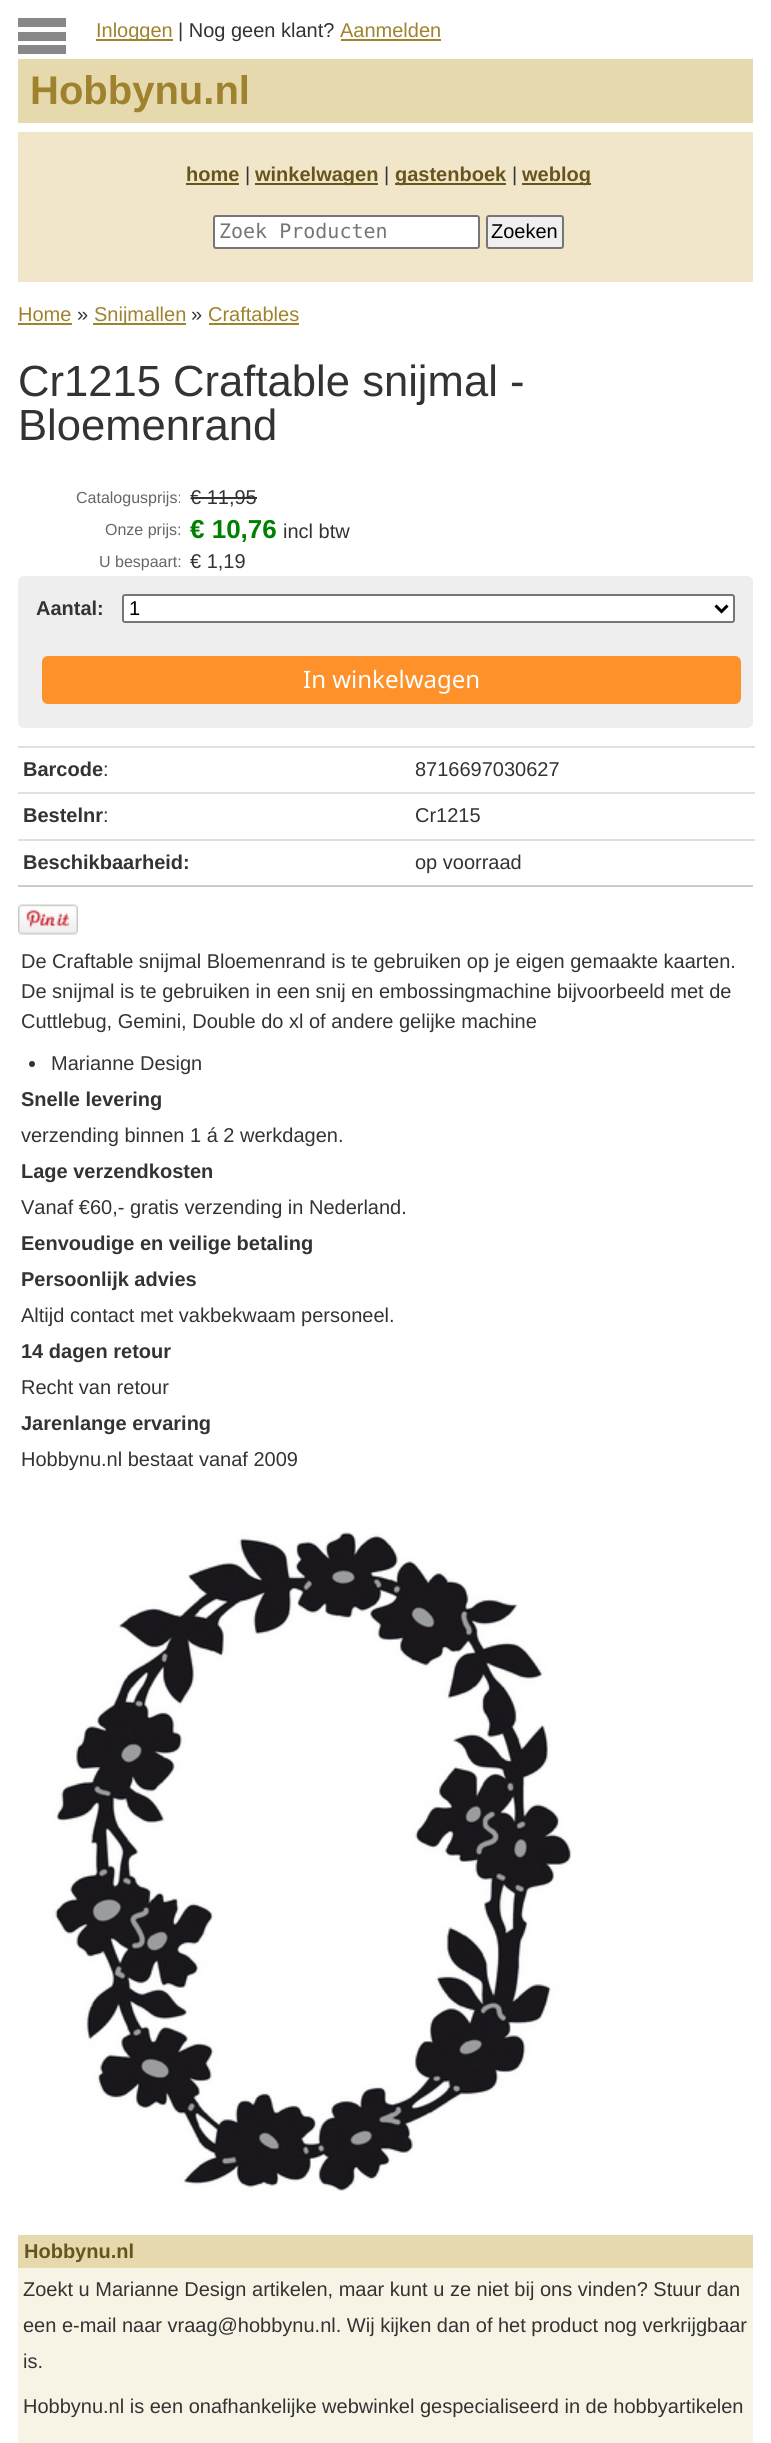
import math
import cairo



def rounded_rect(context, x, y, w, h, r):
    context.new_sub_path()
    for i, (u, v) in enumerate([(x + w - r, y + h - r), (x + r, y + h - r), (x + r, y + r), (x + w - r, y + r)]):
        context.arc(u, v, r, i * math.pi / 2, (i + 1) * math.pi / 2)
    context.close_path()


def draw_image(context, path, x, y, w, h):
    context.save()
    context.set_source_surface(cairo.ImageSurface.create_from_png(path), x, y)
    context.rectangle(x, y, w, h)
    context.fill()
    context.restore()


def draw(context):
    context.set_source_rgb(1, 1, 1)
    context.paint()
    context.set_source_rgb(136 / 255, 136 / 255, 136 / 255)
    context.rectangle(18, 18, 48, 9)
    context.fill()
    context.rectangle(18, 32, 48, 9)
    context.fill()
    context.rectangle(18, 45, 48, 9)
    context.fill()
    context.set_source_rgb(159 / 255, 130 / 255, 45 / 255)
    context.rectangle(96, 39, 77, 2)
    context.fill()
    context.rectangle(341, 39, 100, 2)
    context.fill()
    context.set_source_rgb(231 / 255, 217 / 255, 174 / 255)
    context.rectangle(18, 59, 735, 64)
    context.fill()
    context.set_source_rgb(241 / 255, 230 / 255, 201 / 255)
    context.rectangle(18, 132, 735, 150)
    context.fill()
    context.set_source_rgb(102 / 255, 86 / 255, 30 / 255)
    context.rectangle(186, 183, 53, 2)
    context.fill()
    context.rectangle(255, 183, 123, 2)
    context.fill()
    context.rectangle(395, 183, 111, 2)
    context.fill()
    context.rectangle(522, 183, 69, 2)
    context.fill()
    context.set_source_rgb(1, 1, 1)
    rounded_rect(context, 214, 216, 265, 32, 2)
    context.fill_preserve()
    context.set_source_rgb(118 / 255, 118 / 255, 118 / 255)
    context.stroke()
    context.set_source_rgb(239 / 255, 239 / 255, 239 / 255)
    rounded_rect(context, 487, 216, 76, 32, 2)
    context.fill_preserve()
    context.set_source_rgb(118 / 255, 118 / 255, 118 / 255)
    context.stroke()
    context.set_source_rgb(159 / 255, 130 / 255, 45 / 255)
    context.rectangle(18, 323, 54, 2)
    context.fill()
    context.rectangle(93, 323, 93, 2)
    context.fill()
    context.rectangle(209, 323, 90, 2)
    context.fill()
    context.set_source_rgb(51 / 255, 51 / 255, 51 / 255)
    context.rectangle(191, 497, 66, 2)
    context.fill()
    context.set_source_rgb(238 / 255, 238 / 255, 238 / 255)
    rounded_rect(context, 18, 576, 735, 152, 6)
    context.fill()
    context.set_source_rgb(1, 1, 1)
    rounded_rect(context, 123, 595, 611, 27, 2)
    context.fill_preserve()
    context.set_source_rgb(118 / 255, 118 / 255, 118 / 255)
    context.stroke()
    context.new_path()
    context.move_to(715.5, 605.5)
    context.line_to(721.5, 611.5)
    context.line_to(727.5, 605.5)
    context.set_source_rgb(0, 0, 0)
    context.set_line_width(3)
    context.stroke()
    context.set_source_rgb(1, 145 / 255, 42 / 255)
    rounded_rect(context, 42, 656, 699, 48, 6)
    context.fill()
    context.set_source_rgb(204 / 255, 204 / 255, 204 / 255)
    context.rectangle(18, 885, 735, 2)
    context.fill()
    context.set_source_rgb(224 / 255, 224 / 255, 224 / 255)
    context.rectangle(18, 746, 737, 2)
    context.fill()
    context.rectangle(18, 792, 737, 2)
    context.fill()
    context.rectangle(18, 839, 737, 2)
    context.fill()
    draw_image(context, "images/1.png", 18, 904, 60, 31)
    context.set_source_rgb(51 / 255, 51 / 255, 51 / 255)
    context.arc(32, 1064, 3, 0, 2 * math.pi)
    context.fill()
    draw_image(context, "images/2.png", 52, 1532, 520, 661)
    context.set_source_rgb(231 / 255, 217 / 255, 174 / 255)
    context.rectangle(18, 2235, 735, 33)
    context.fill()
    context.set_source_rgb(248 / 255, 244 / 255, 229 / 255)
    context.rectangle(18, 2268, 735, 175)
    context.fill()
    context.select_font_face("Liberation Sans")
    context.set_font_size(20)
    context.set_source_rgb(159 / 255, 130 / 255, 45 / 255)
    context.move_to(96, 37)
    context.show_text("Inloggen")
    context.set_source_rgb(51 / 255, 51 / 255, 51 / 255)
    context.move_to(178, 37)
    context.show_text("| Nog geen klant?")
    context.set_source_rgb(159 / 255, 130 / 255, 45 / 255)
    context.move_to(340, 37)
    context.show_text("Aanmelden")
    context.select_font_face("Liberation Sans", cairo.FontSlant.NORMAL, cairo.FontWeight.BOLD)
    context.set_font_size(40)
    context.move_to(30, 104)
    context.show_text("Hobbynu.nl")
    context.set_font_size(20)
    context.set_source_rgb(102 / 255, 86 / 255, 30 / 255)
    context.move_to(186, 181)
    context.show_text("home")
    context.select_font_face("Liberation Sans")
    context.set_source_rgb(51 / 255, 51 / 255, 51 / 255)
    context.move_to(245, 181)
    context.show_text("|")
    context.select_font_face("Liberation Sans", cairo.FontSlant.NORMAL, cairo.FontWeight.BOLD)
    context.set_source_rgb(102 / 255, 86 / 255, 30 / 255)
    context.move_to(255, 181)
    context.show_text("winkelwagen")
    context.select_font_face("Liberation Sans")
    context.set_source_rgb(51 / 255, 51 / 255, 51 / 255)
    context.move_to(384, 181)
    context.show_text("|")
    context.select_font_face("Liberation Sans", cairo.FontSlant.NORMAL, cairo.FontWeight.BOLD)
    context.set_source_rgb(102 / 255, 86 / 255, 30 / 255)
    context.move_to(395, 181)
    context.show_text("gastenboek")
    context.select_font_face("Liberation Sans")
    context.set_source_rgb(51 / 255, 51 / 255, 51 / 255)
    context.move_to(512, 181)
    context.show_text("|")
    context.select_font_face("Liberation Sans", cairo.FontSlant.NORMAL, cairo.FontWeight.BOLD)
    context.set_source_rgb(102 / 255, 86 / 255, 30 / 255)
    context.move_to(522, 181)
    context.show_text("weblog")
    context.select_font_face("DejaVu Sans Mono")
    context.set_source_rgb(117 / 255, 117 / 255, 117 / 255)
    context.move_to(219, 238)
    context.show_text("Zoek Producten")
    context.select_font_face("Liberation Sans")
    context.set_source_rgb(0, 0, 0)
    context.move_to(491, 238)
    context.show_text("Zoeken")
    context.set_source_rgb(159 / 255, 130 / 255, 45 / 255)
    context.move_to(18, 321)
    context.show_text("Home")
    context.set_source_rgb(51 / 255, 51 / 255, 51 / 255)
    context.move_to(77, 321)
    context.show_text("»")
    context.set_source_rgb(159 / 255, 130 / 255, 45 / 255)
    context.move_to(94, 321)
    context.show_text("Snijmallen")
    context.set_source_rgb(51 / 255, 51 / 255, 51 / 255)
    context.move_to(191, 321)
    context.show_text("»")
    context.set_source_rgb(159 / 255, 130 / 255, 45 / 255)
    context.move_to(208, 321)
    context.show_text("Craftables")
    context.set_font_size(43.6)
    context.set_source_rgb(51 / 255, 51 / 255, 51 / 255)
    context.move_to(18, 396)
    context.show_text("Cr1215 Craftable snijmal -")
    context.move_to(18, 440)
    context.show_text("Bloemenrand")
    context.set_font_size(16)
    context.set_source_rgb(102 / 255, 102 / 255, 102 / 255)
    context.move_to(76, 503)
    context.show_text("Catalogusprijs:")
    context.set_font_size(20)
    context.set_source_rgb(51 / 255, 51 / 255, 51 / 255)
    context.move_to(190, 504)
    context.show_text("€ 11,95")
    context.set_font_size(16)
    context.set_source_rgb(102 / 255, 102 / 255, 102 / 255)
    context.move_to(105, 535)
    context.show_text("Onze prijs:")
    context.select_font_face("Liberation Sans", cairo.FontSlant.NORMAL, cairo.FontWeight.BOLD)
    context.set_font_size(26)
    context.set_source_rgb(0, 128 / 255, 0)
    context.move_to(190, 538)
    context.show_text("€ 10,76")
    context.select_font_face("Liberation Sans")
    context.set_font_size(20)
    context.set_source_rgb(51 / 255, 51 / 255, 51 / 255)
    context.move_to(283, 538)
    context.show_text("incl btw")
    context.set_font_size(16)
    context.set_source_rgb(102 / 255, 102 / 255, 102 / 255)
    context.move_to(99, 567)
    context.show_text("U bespaart:")
    context.set_font_size(20)
    context.set_source_rgb(51 / 255, 51 / 255, 51 / 255)
    context.move_to(190, 568)
    context.show_text("€ 1,19")
    context.select_font_face("Liberation Sans", cairo.FontSlant.NORMAL, cairo.FontWeight.BOLD)
    context.move_to(36, 615)
    context.show_text("Aantal:")
    context.select_font_face("Liberation Sans")
    context.set_source_rgb(0, 0, 0)
    context.move_to(129, 615)
    context.show_text("1")
    context.select_font_face("Noto Sans")
    context.set_font_size(24)
    context.set_source_rgb(1, 1, 1)
    context.move_to(303, 688)
    context.show_text("In winkelwagen")
    context.select_font_face("Liberation Sans", cairo.FontSlant.NORMAL, cairo.FontWeight.BOLD)
    context.set_font_size(20)
    context.set_source_rgb(51 / 255, 51 / 255, 51 / 255)
    context.move_to(23, 776)
    context.show_text("Barcode")
    context.select_font_face("Liberation Sans")
    context.move_to(103, 776)
    context.show_text(":")
    context.move_to(415, 776)
    context.show_text("8716697030627")
    context.select_font_face("Liberation Sans", cairo.FontSlant.NORMAL, cairo.FontWeight.BOLD)
    context.move_to(23, 822)
    context.show_text("Bestelnr")
    context.select_font_face("Liberation Sans")
    context.move_to(103, 822)
    context.show_text(":")
    context.move_to(415, 822)
    context.show_text("Cr1215")
    context.select_font_face("Liberation Sans", cairo.FontSlant.NORMAL, cairo.FontWeight.BOLD)
    context.move_to(23, 869)
    context.show_text("Beschikbaarheid:")
    context.select_font_face("Liberation Sans")
    context.move_to(415, 869)
    context.show_text("op voorraad")
    context.move_to(21, 968)
    context.show_text("De Craftable snijmal Bloemenrand is te gebruiken op je eigen gemaakte kaarten.")
    context.move_to(21, 998)
    context.show_text("De snijmal is te gebruiken in een snij en embossingmachine bijvoorbeeld met de")
    context.move_to(21, 1028)
    context.show_text("Cuttlebug, Gemini, Double do xl of andere gelijke machine")
    context.move_to(51, 1070)
    context.show_text("Marianne Design")
    context.select_font_face("Liberation Sans", cairo.FontSlant.NORMAL, cairo.FontWeight.BOLD)
    context.move_to(21, 1106)
    context.show_text("Snelle levering")
    context.select_font_face("Liberation Sans")
    context.move_to(21, 1142)
    context.show_text("verzending binnen 1 á 2 werkdagen.")
    context.select_font_face("Liberation Sans", cairo.FontSlant.NORMAL, cairo.FontWeight.BOLD)
    context.move_to(21, 1178)
    context.show_text("Lage verzendkosten")
    context.select_font_face("Liberation Sans")
    context.move_to(21, 1214)
    context.show_text("Vanaf €60,- gratis verzending in Nederland.")
    context.select_font_face("Liberation Sans", cairo.FontSlant.NORMAL, cairo.FontWeight.BOLD)
    context.move_to(21, 1250)
    context.show_text("Eenvoudige en veilige betaling")
    context.move_to(21, 1286)
    context.show_text("Persoonlijk advies")
    context.select_font_face("Liberation Sans")
    context.move_to(21, 1322)
    context.show_text("Altijd contact met vakbekwaam personeel.")
    context.select_font_face("Liberation Sans", cairo.FontSlant.NORMAL, cairo.FontWeight.BOLD)
    context.move_to(21, 1358)
    context.show_text("14 dagen retour")
    context.select_font_face("Liberation Sans")
    context.move_to(21, 1394)
    context.show_text("Recht van retour")
    context.select_font_face("Liberation Sans", cairo.FontSlant.NORMAL, cairo.FontWeight.BOLD)
    context.move_to(21, 1430)
    context.show_text("Jarenlange ervaring")
    context.select_font_face("Liberation Sans")
    context.move_to(21, 1466)
    context.show_text("Hobbynu.nl bestaat vanaf 2009")
    context.select_font_face("Liberation Sans", cairo.FontSlant.NORMAL, cairo.FontWeight.BOLD)
    context.set_source_rgb(102 / 255, 86 / 255, 30 / 255)
    context.move_to(24, 2258)
    context.show_text("Hobbynu.nl")
    context.select_font_face("Liberation Sans")
    context.set_source_rgb(51 / 255, 51 / 255, 51 / 255)
    context.move_to(23, 2296)
    context.show_text("Zoekt u Marianne Design artikelen, maar kunt u ze niet bij ons vinden? Stuur dan")
    context.move_to(23, 2332)
    context.show_text("een e-mail naar vraag@hobbynu.nl. Wij kijken dan of het product nog verkrijgbaar")
    context.move_to(23, 2368)
    context.show_text("is.")
    context.move_to(23, 2413)
    context.show_text("Hobbynu.nl is een onafhankelijke webwinkel gespecialiseerd in de hobbyartikelen")


surface = cairo.ImageSurface(cairo.Format.RGB24, 771, 2443)
context = cairo.Context(surface)
options = cairo.FontOptions()
options.set_hint_metrics(cairo.HintMetrics.OFF)
options.set_hint_style(cairo.HintStyle.NONE)
context.set_font_options(options)
context.set_miter_limit(4)
draw(context)
surface.write_to_png("out.png")
